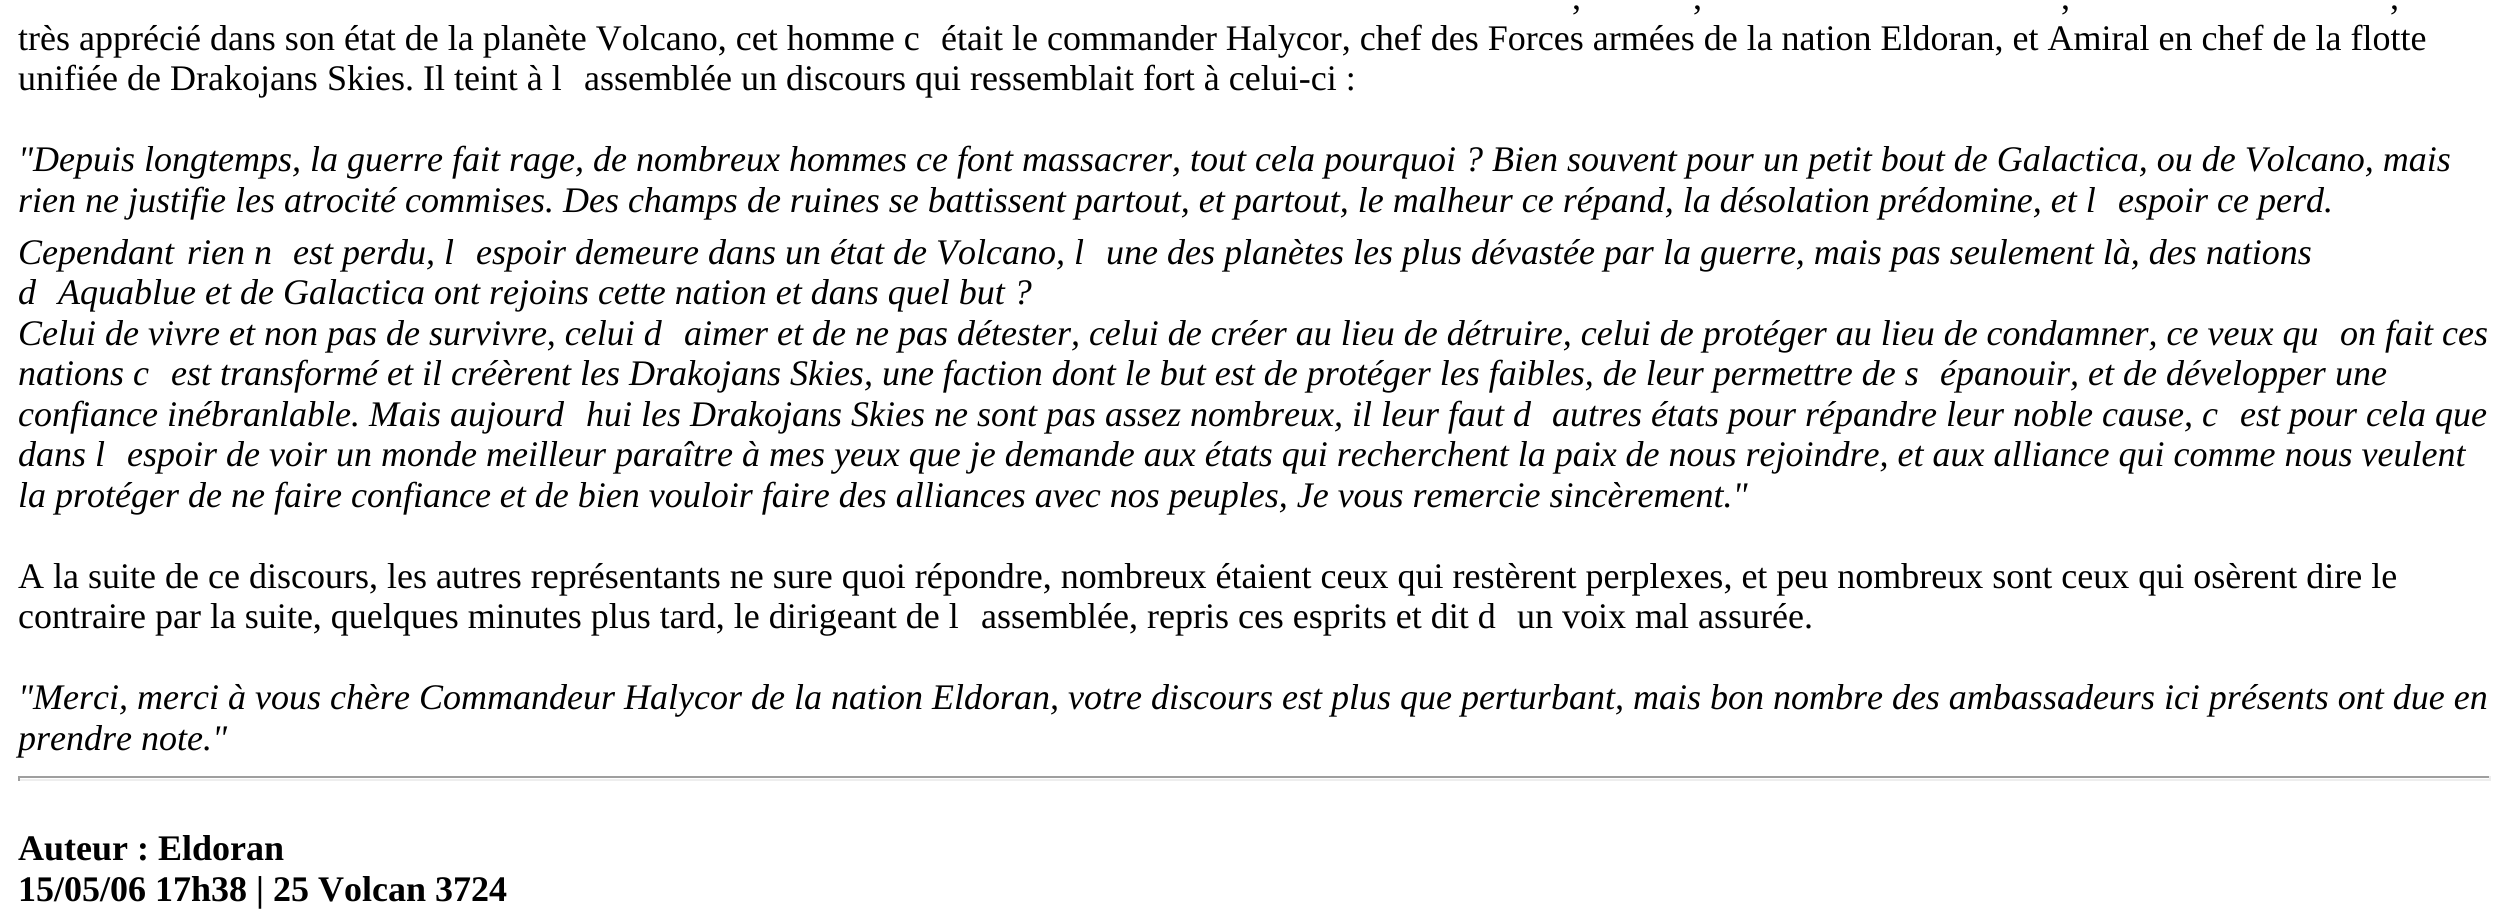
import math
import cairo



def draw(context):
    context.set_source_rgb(1, 1, 1)
    context.paint()
    context.set_source_rgb(159 / 255, 159 / 255, 159 / 255)
    context.rectangle(18, 776, 2473, 2)
    context.fill()
    context.set_source_rgb(238 / 255, 238 / 255, 238 / 255)
    context.rectangle(2489, 776, 2, 5)
    context.fill()
    context.rectangle(18, 779, 2473, 2)
    context.fill()
    context.set_source_rgb(159 / 255, 159 / 255, 159 / 255)
    context.rectangle(18, 776, 2, 5)
    context.fill()
    context.select_font_face("Liberation Serif")
    context.set_font_size(36)
    context.set_source_rgb(0, 0, 0)
    context.move_to(1572, 9)
    context.show_text(",")
    context.move_to(1693, 9)
    context.show_text(",")
    context.move_to(2061, 9)
    context.show_text(",")
    context.move_to(2390, 9)
    context.show_text(",")
    context.move_to(18, 50)
    context.show_text("très apprécié dans son état de la planète Volcano, cet homme c")
    context.move_to(941, 50)
    context.show_text("était le commander Halycor, chef des Forces armées de la nation Eldoran, et Amiral en chef de la flotte")
    context.move_to(18, 90)
    context.show_text("unifiée de Drakojans Skies. Il teint à l")
    context.move_to(584, 90)
    context.show_text("assemblée un discours qui ressemblait fort à celui-ci :")
    context.select_font_face("Liberation Serif", cairo.FontSlant.ITALIC)
    context.move_to(18, 171)
    context.show_text("\"Depuis longtemps, la guerre fait rage, de nombreux hommes ce font massacrer, tout cela pourquoi ? Bien souvent pour un petit bout de Galactica, ou de Volcano, mais")
    context.move_to(18, 212)
    context.show_text("rien ne justifie les atrocité commises. Des champs de ruines se battissent partout, et partout, le malheur ce répand, la désolation prédomine, et l")
    context.move_to(2118, 212)
    context.show_text("espoir ce perd.")
    context.move_to(18, 264)
    context.show_text("Cependant")
    context.move_to(187, 264)
    context.show_text("rien n")
    context.move_to(293, 264)
    context.show_text("est perdu, l")
    context.move_to(476, 264)
    context.show_text("espoir demeure dans un état de Volcano, l")
    context.move_to(1106, 264)
    context.show_text("une des planètes les plus dévastée par la guerre, mais pas seulement là, des nations")
    context.move_to(18, 304)
    context.show_text("d")
    context.move_to(58, 304)
    context.show_text("Aquablue et de Galactica ont rejoins cette nation et dans quel but ?")
    context.move_to(18, 345)
    context.show_text("Celui de vivre et non pas de survivre, celui d")
    context.move_to(684, 345)
    context.show_text("aimer et de ne pas détester, celui de créer au lieu de détruire, celui de protéger au lieu de condamner, ce veux qu")
    context.move_to(2340, 345)
    context.show_text("on fait ces")
    context.move_to(18, 385)
    context.show_text("nations c")
    context.move_to(171, 385)
    context.show_text("est transformé et il créèrent les Drakojans Skies, une faction dont le but est de protéger les faibles, de leur permettre de s")
    context.move_to(1940, 385)
    context.show_text("épanouir, et de développer une")
    context.move_to(18, 426)
    context.show_text("confiance inébranlable. Mais aujourd")
    context.move_to(586, 426)
    context.show_text("hui les Drakojans Skies ne sont pas assez nombreux, il leur faut d")
    context.move_to(1552, 426)
    context.show_text("autres états pour répandre leur noble cause, c")
    context.move_to(2240, 426)
    context.show_text("est pour cela que")
    context.move_to(18, 466)
    context.show_text("dans l")
    context.move_to(127, 466)
    context.show_text("espoir de voir un monde meilleur paraître à mes yeux que je demande aux états qui recherchent la paix de nous rejoindre, et aux alliance qui comme nous veulent")
    context.move_to(18, 507)
    context.show_text("la protéger de ne faire confiance et de bien vouloir faire des alliances avec nos peuples, Je vous remercie sincèrement.\"")
    context.select_font_face("Liberation Serif")
    context.move_to(18, 588)
    context.show_text("A la suite de ce discours, les autres représentants ne sure quoi répondre, nombreux étaient ceux qui restèrent perplexes, et peu nombreux sont ceux qui osèrent dire le")
    context.move_to(18, 628)
    context.show_text("contraire par la suite, quelques minutes plus tard, le dirigeant de l")
    context.move_to(981, 628)
    context.show_text("assemblée, repris ces esprits et dit d")
    context.move_to(1517, 628)
    context.show_text("un voix mal assurée.")
    context.select_font_face("Liberation Serif", cairo.FontSlant.ITALIC)
    context.move_to(18, 709)
    context.show_text("\"Merci, merci à vous chère Commandeur Halycor de la nation Eldoran, votre discours est plus que perturbant, mais bon nombre des ambassadeurs ici présents ont due en")
    context.move_to(18, 750)
    context.show_text("prendre note.\"")
    context.select_font_face("Liberation Serif", cairo.FontSlant.NORMAL, cairo.FontWeight.BOLD)
    context.move_to(18, 860)
    context.show_text("Auteur : Eldoran")
    context.move_to(18, 901)
    context.show_text("15/05/06 17h38 | 25 Volcan 3724")


surface = cairo.ImageSurface(cairo.Format.RGB24, 2508, 922)
context = cairo.Context(surface)
options = cairo.FontOptions()
options.set_hint_metrics(cairo.HintMetrics.OFF)
options.set_hint_style(cairo.HintStyle.NONE)
context.set_font_options(options)
context.set_miter_limit(4)
draw(context)
surface.write_to_png("out.png")
